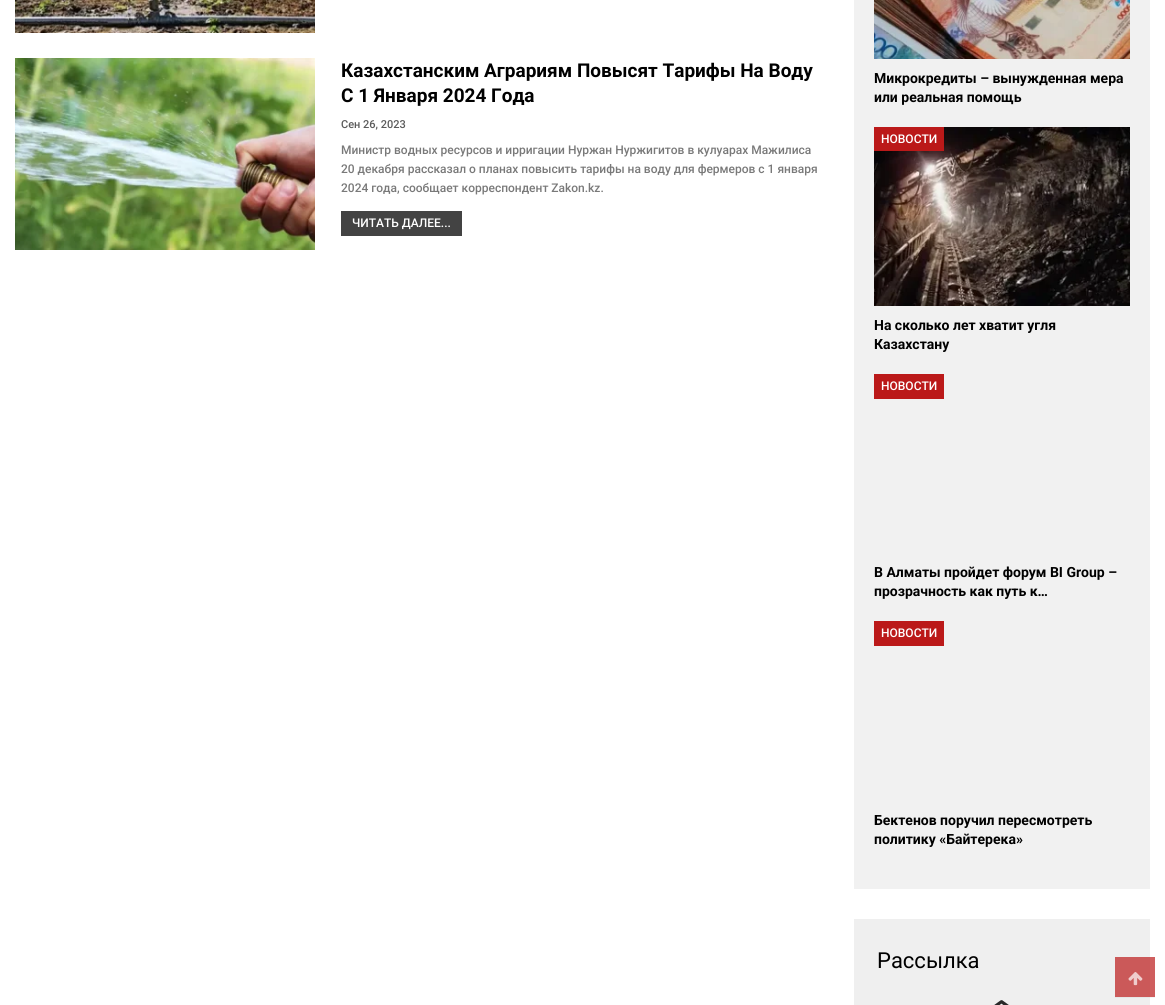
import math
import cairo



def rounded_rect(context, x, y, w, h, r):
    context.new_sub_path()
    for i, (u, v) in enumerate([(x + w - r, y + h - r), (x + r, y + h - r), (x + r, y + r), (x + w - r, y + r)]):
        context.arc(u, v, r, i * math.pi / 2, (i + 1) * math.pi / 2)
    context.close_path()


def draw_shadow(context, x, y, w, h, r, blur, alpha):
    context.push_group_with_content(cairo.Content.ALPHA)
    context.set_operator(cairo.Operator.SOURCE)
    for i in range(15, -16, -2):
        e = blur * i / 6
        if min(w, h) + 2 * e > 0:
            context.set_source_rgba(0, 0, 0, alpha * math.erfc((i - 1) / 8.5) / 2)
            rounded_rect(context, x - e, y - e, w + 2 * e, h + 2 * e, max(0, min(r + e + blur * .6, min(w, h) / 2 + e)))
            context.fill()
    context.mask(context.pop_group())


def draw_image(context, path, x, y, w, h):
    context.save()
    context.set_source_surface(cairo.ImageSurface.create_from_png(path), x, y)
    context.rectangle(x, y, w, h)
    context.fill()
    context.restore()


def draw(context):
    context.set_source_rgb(1, 1, 1)
    context.paint()
    context.set_source_rgb(207 / 255, 94 / 255, 94 / 255)
    context.rectangle(1150, 957, 5, 40)
    context.fill()
    draw_image(context, "images/1.png", 15, 0, 300, 33)
    draw_image(context, "images/2.png", 15, 58, 300, 192)
    context.set_source_rgb(67 / 255, 67 / 255, 67 / 255)
    context.rectangle(341, 211, 121, 25)
    context.fill()
    context.set_source_rgb(241 / 255, 241 / 255, 241 / 255)
    context.rectangle(854, 0, 296, 889)
    context.fill()
    draw_image(context, "images/3.png", 874, 0, 256, 59)
    draw_image(context, "images/4.png", 874, 127, 256, 179)
    context.set_source_rgb(187 / 255, 25 / 255, 25 / 255)
    context.rectangle(874, 127, 70, 24)
    context.fill()
    context.rectangle(874, 374, 70, 25)
    context.fill()
    context.rectangle(874, 621, 70, 25)
    context.fill()
    context.set_source_rgb(239 / 255, 239 / 255, 239 / 255)
    context.rectangle(854, 919, 296, 86)
    context.fill()
    context.set_source_rgb(203 / 255, 89 / 255, 89 / 255)
    context.rectangle(1115, 957, 35, 40)
    context.fill()
    draw_image(context, "images/5.png", 994, 1000, 15, 5)
    context.save()
    context.rectangle(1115, 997, 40, 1)
    context.clip()
    context.set_source_rgb(0, 0, 0)
    draw_shadow(context, 1115, 958, 40, 40, 0, 1, 0.06)
    context.restore()
    draw_image(context, "images/6.png", 1128, 972, 15, 14)
    context.select_font_face("Roboto", cairo.FontSlant.NORMAL, cairo.FontWeight.BOLD)
    context.set_font_size(19)
    context.set_source_rgb(0, 0, 0)
    context.move_to(341, 77)
    context.show_text("Казахстанским Аграриям Повысят Тарифы На Воду")
    context.move_to(341, 102)
    context.show_text("С 1 Января 2024 Года")
    context.select_font_face("Roboto Medium")
    context.set_font_size(11)
    context.set_source_rgb(90 / 255, 90 / 255, 90 / 255)
    context.move_to(341, 128)
    context.show_text("Сен 26, 2023")
    context.set_font_size(12)
    context.set_source_rgb(121 / 255, 121 / 255, 121 / 255)
    context.move_to(341, 154)
    context.show_text("Министр водных ресурсов и ирригации Нуржан Нуржигитов в кулуарах Мажилиса")
    context.move_to(341, 173)
    context.show_text("20 декабря рассказал о планах повысить тарифы на воду для фермеров с 1 января")
    context.move_to(341, 192)
    context.show_text("2024 года, сообщает корреспондент Zakon.kz.")
    context.set_source_rgb(1, 1, 1)
    context.move_to(352, 227)
    context.show_text("ЧИТАТЬ ДАЛЕЕ...")
    context.select_font_face("Roboto", cairo.FontSlant.NORMAL, cairo.FontWeight.BOLD)
    context.set_font_size(14)
    context.set_source_rgb(0, 0, 0)
    context.move_to(874, 83)
    context.show_text("Микрокредиты – вынужденная мера")
    context.move_to(874, 102)
    context.show_text("или реальная помощь")
    context.select_font_face("Roboto Medium")
    context.set_font_size(12)
    context.set_source_rgb(1, 1, 1)
    context.move_to(881, 143)
    context.show_text("НОВОСТИ")
    context.select_font_face("Roboto", cairo.FontSlant.NORMAL, cairo.FontWeight.BOLD)
    context.set_font_size(14)
    context.set_source_rgb(0, 0, 0)
    context.move_to(874, 330)
    context.show_text("На сколько лет хватит угля")
    context.move_to(874, 349)
    context.show_text("Казахстану")
    context.select_font_face("Roboto Medium")
    context.set_font_size(12)
    context.set_source_rgb(1, 1, 1)
    context.move_to(881, 390)
    context.show_text("НОВОСТИ")
    context.select_font_face("Roboto", cairo.FontSlant.NORMAL, cairo.FontWeight.BOLD)
    context.set_font_size(14)
    context.set_source_rgb(0, 0, 0)
    context.move_to(874, 577)
    context.show_text("В Алматы пройдет форум BI Group –")
    context.move_to(874, 596)
    context.show_text("прозрачность как путь к…")
    context.select_font_face("Roboto Medium")
    context.set_font_size(12)
    context.set_source_rgb(1, 1, 1)
    context.move_to(881, 637)
    context.show_text("НОВОСТИ")
    context.select_font_face("Roboto", cairo.FontSlant.NORMAL, cairo.FontWeight.BOLD)
    context.set_font_size(14)
    context.set_source_rgb(0, 0, 0)
    context.move_to(874, 825)
    context.show_text("Бектенов поручил пересмотреть")
    context.move_to(874, 844)
    context.show_text("политику «Байтерека»")
    context.select_font_face("Roboto")
    context.set_font_size(22)
    context.move_to(877, 968)
    context.show_text("Рассылка")


surface = cairo.ImageSurface(cairo.Format.RGB24, 1165, 1005)
context = cairo.Context(surface)
options = cairo.FontOptions()
options.set_hint_metrics(cairo.HintMetrics.OFF)
options.set_hint_style(cairo.HintStyle.NONE)
context.set_font_options(options)
context.set_miter_limit(4)
draw(context)
surface.write_to_png("out.png")
